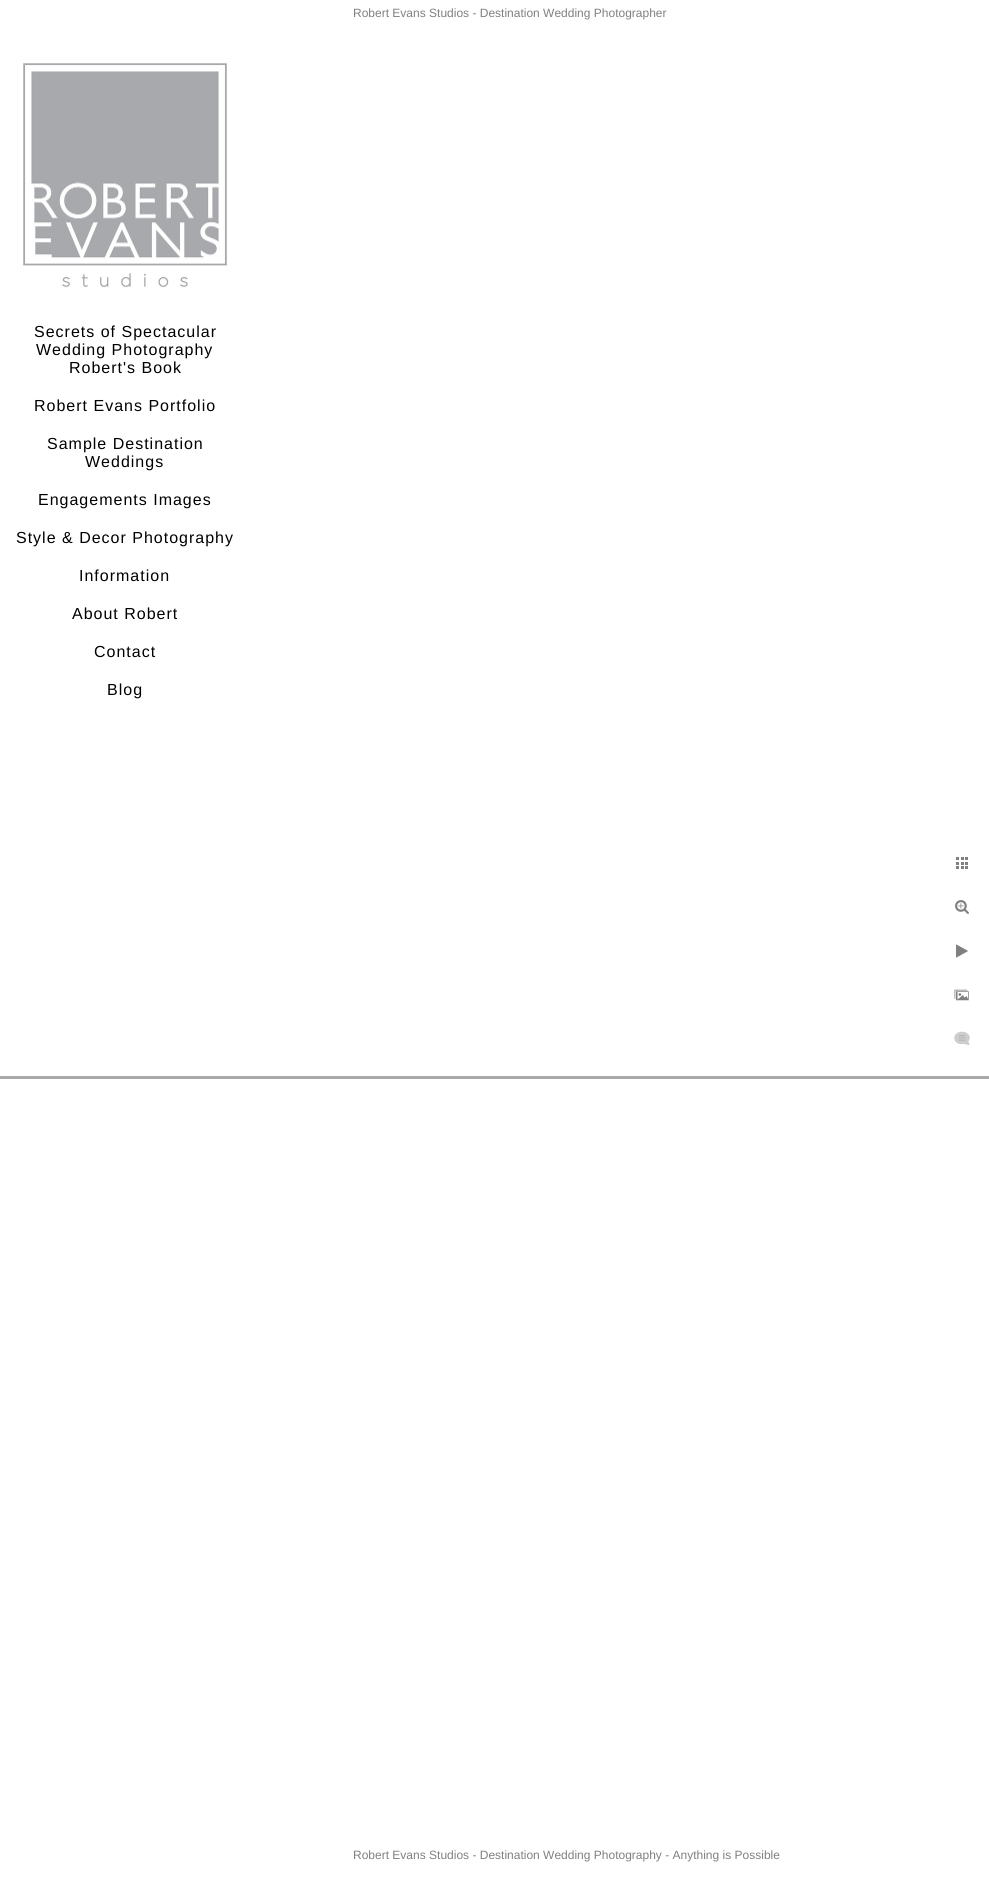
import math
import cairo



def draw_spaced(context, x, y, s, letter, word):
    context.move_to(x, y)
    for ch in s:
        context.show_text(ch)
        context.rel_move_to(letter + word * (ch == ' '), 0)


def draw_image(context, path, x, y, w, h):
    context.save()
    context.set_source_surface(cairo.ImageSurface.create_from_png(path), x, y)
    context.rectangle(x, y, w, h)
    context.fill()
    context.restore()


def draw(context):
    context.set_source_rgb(1, 1, 1)
    context.paint()
    draw_image(context, "images/1.png", 23, 63, 204, 225)
    draw_image(context, "images/2.png", 956, 857, 12, 12)
    draw_image(context, "images/3.png", 955, 900, 14, 14)
    draw_image(context, "images/4.png", 956, 944, 12, 14)
    draw_image(context, "images/5.png", 954, 989, 15, 12)
    draw_image(context, "images/6.png", 954, 1031, 16, 14)
    context.set_source_rgb(169 / 255, 169 / 255, 169 / 255)
    context.rectangle(0, 1076, 989, 3)
    context.fill()
    context.select_font_face("Liberation Sans")
    context.set_font_size(12)
    context.set_source_rgb(128 / 255, 128 / 255, 128 / 255)
    context.move_to(353, 17)
    context.show_text("Robert Evans Studios - Destination Wedding Photographer")
    context.set_font_size(16)
    context.set_source_rgb(0, 0, 0)
    draw_spaced(context, 34, 337, "Secrets of Spectacular", 1, 0)
    draw_spaced(context, 36, 355, "Wedding Photography", 1, 0)
    draw_spaced(context, 69, 373, "Robert's Book", 1, 0)
    draw_spaced(context, 34, 411, "Robert Evans Portfolio", 1, 0)
    draw_spaced(context, 47, 449, "Sample Destination", 1, 0)
    draw_spaced(context, 85, 467, "Weddings", 1, 0)
    draw_spaced(context, 38, 505, "Engagements Images", 1, 0)
    draw_spaced(context, 16, 543, "Style & Decor Photography", 1, 0)
    draw_spaced(context, 79, 581, "Information", 1, 0)
    draw_spaced(context, 72, 619, "About Robert", 1, 0)
    draw_spaced(context, 94, 657, "Contact", 1, 0)
    draw_spaced(context, 107, 695, "Blog", 1, 0)
    context.set_font_size(12)
    context.set_source_rgb(128 / 255, 128 / 255, 128 / 255)
    context.move_to(353, 1859)
    context.show_text("Robert Evans Studios - Destination Wedding Photography - Anything is Possible")


surface = cairo.ImageSurface(cairo.Format.RGB24, 989, 1882)
context = cairo.Context(surface)
options = cairo.FontOptions()
options.set_hint_metrics(cairo.HintMetrics.OFF)
options.set_hint_style(cairo.HintStyle.NONE)
context.set_font_options(options)
context.set_miter_limit(4)
draw(context)
surface.write_to_png("out.png")
